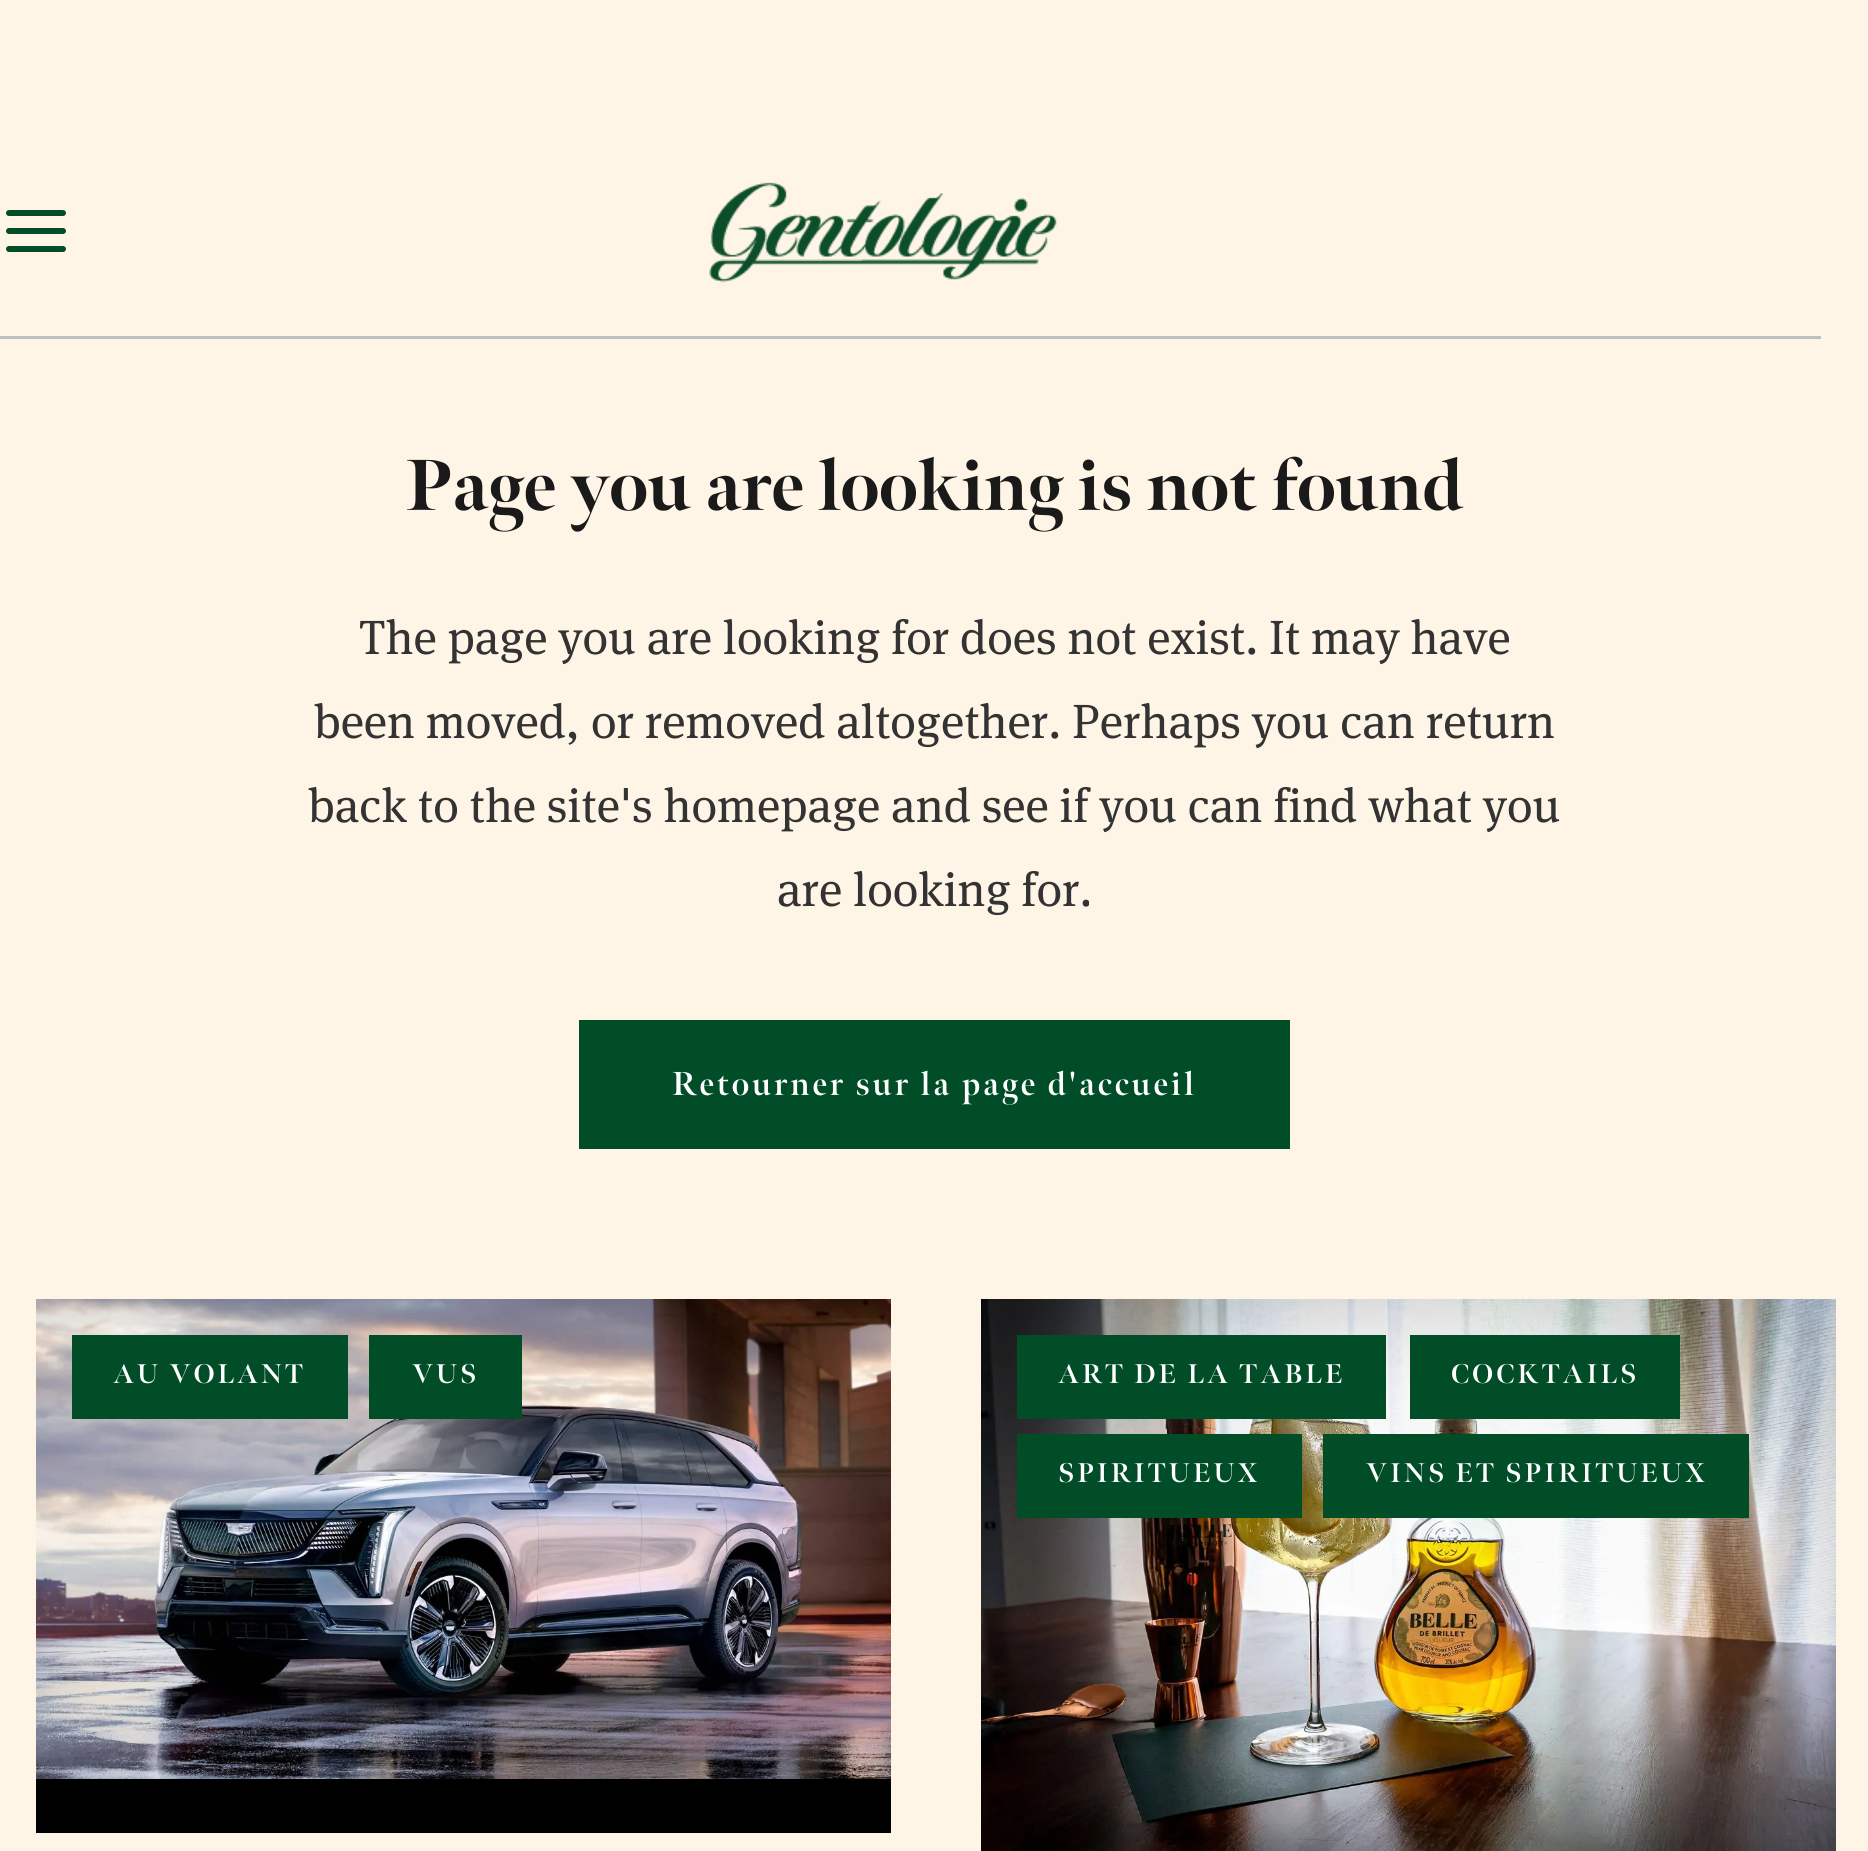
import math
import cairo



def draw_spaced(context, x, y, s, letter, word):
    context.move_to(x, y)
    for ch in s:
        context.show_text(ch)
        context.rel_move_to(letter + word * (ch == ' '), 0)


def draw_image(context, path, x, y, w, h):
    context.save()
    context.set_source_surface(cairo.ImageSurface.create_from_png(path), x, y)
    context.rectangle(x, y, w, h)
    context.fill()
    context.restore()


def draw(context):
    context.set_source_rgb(1, 245 / 255, 230 / 255)
    context.paint()
    context.set_source_rgb(188 / 255, 192 / 255, 196 / 255)
    context.rectangle(0, 336, 1821, 3)
    context.fill()
    draw_image(context, "images/1.png", 6, 210, 60, 42)
    draw_image(context, "images/2.png", 709, 182, 348, 101)
    context.set_source_rgb(0, 77 / 255, 40 / 255)
    context.rectangle(579, 1020, 711, 129)
    context.fill()
    draw_image(context, "images/3.png", 36, 1299, 855, 480)
    context.set_source_rgb(0, 0, 0)
    context.rectangle(36, 1779, 855, 54)
    context.fill()
    context.set_source_rgb(0, 77 / 255, 40 / 255)
    context.rectangle(72, 1335, 276, 84)
    context.fill()
    context.rectangle(369, 1335, 153, 84)
    context.fill()
    draw_image(context, "images/4.png", 981, 1299, 855, 552)
    context.rectangle(1017, 1335, 369, 84)
    context.fill()
    context.rectangle(1410, 1335, 270, 84)
    context.fill()
    context.rectangle(1017, 1434, 285, 84)
    context.fill()
    context.rectangle(1323, 1434, 426, 84)
    context.fill()
    context.select_font_face("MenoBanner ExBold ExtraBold")
    context.set_font_size(72)
    context.set_source_rgb(26 / 255, 26 / 255, 26 / 255)
    context.move_to(406, 510)
    context.show_text("Page you are looking is not found")
    context.select_font_face("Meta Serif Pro")
    context.set_font_size(48)
    context.set_source_rgb(51 / 255, 51 / 255, 51 / 255)
    context.move_to(359, 654)
    context.show_text("The page you are looking for does not exist. It may have")
    context.move_to(314, 738)
    context.show_text("been moved, or removed altogether. Perhaps you can return")
    context.move_to(308, 822)
    context.show_text("back to the site's homepage and see if you can find what you")
    context.move_to(777, 906)
    context.show_text("are looking for.")
    context.select_font_face("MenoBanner", cairo.FontSlant.NORMAL, cairo.FontWeight.BOLD)
    context.set_font_size(33.1)
    context.set_source_rgb(1, 1, 1)
    draw_spaced(context, 672, 1095, "Retourner sur la page d'accueil", 3, 0)
    context.set_font_size(27)
    draw_spaced(context, 113, 1383, "AU VOLANT", 3, 0)
    draw_spaced(context, 412, 1383, "VUS", 3, 0)
    draw_spaced(context, 1058, 1383, "ART DE LA TABLE", 3, 0)
    draw_spaced(context, 1451, 1383, "COCKTAILS", 3, 0)
    draw_spaced(context, 1058, 1482, "SPIRITUEUX", 3, 0)
    draw_spaced(context, 1366, 1482, "VINS ET SPIRITUEUX", 3, 0)


surface = cairo.ImageSurface(cairo.Format.RGB24, 1868, 1851)
context = cairo.Context(surface)
options = cairo.FontOptions()
options.set_hint_metrics(cairo.HintMetrics.OFF)
options.set_hint_style(cairo.HintStyle.NONE)
context.set_font_options(options)
context.set_miter_limit(4)
draw(context)
surface.write_to_png("out.png")
